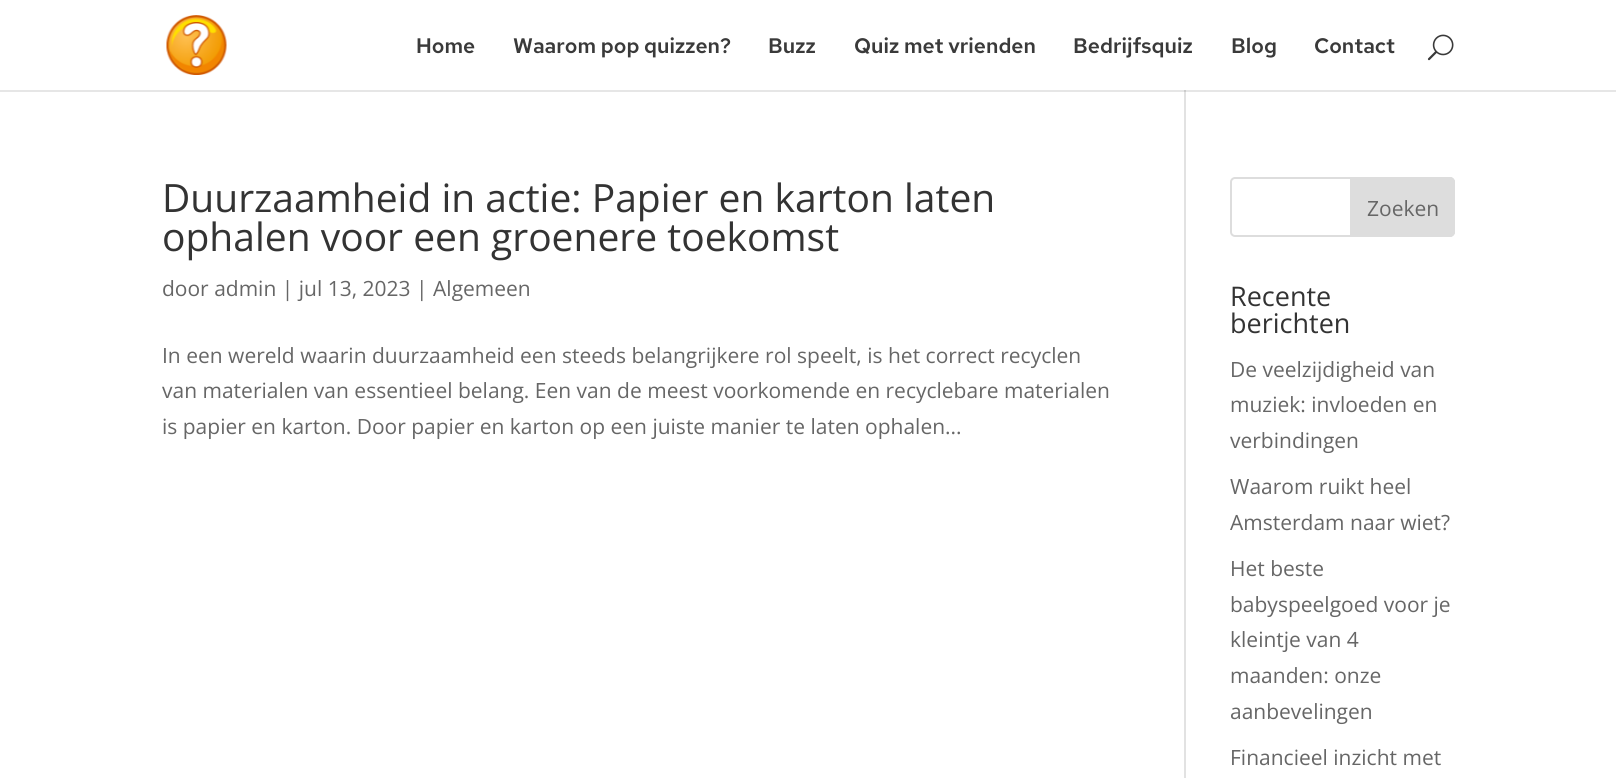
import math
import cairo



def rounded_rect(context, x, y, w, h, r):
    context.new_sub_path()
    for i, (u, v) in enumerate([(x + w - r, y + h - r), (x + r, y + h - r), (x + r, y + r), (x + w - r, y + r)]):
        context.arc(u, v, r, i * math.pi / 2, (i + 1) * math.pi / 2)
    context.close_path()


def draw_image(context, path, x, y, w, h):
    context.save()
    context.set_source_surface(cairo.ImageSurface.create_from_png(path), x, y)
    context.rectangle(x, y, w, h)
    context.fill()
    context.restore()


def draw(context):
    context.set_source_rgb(1, 1, 1)
    context.paint()
    context.set_source_rgb(230 / 255, 230 / 255, 230 / 255)
    context.rectangle(0, 90, 1616, 2)
    context.fill()
    draw_image(context, "images/1.png", 166, 15, 61, 60)
    draw_image(context, "images/2.png", 1427, 34, 27, 27)
    context.set_source_rgb(226 / 255, 226 / 255, 226 / 255)
    context.rectangle(1184, 90, 2, 688)
    context.fill()
    context.set_source_rgb(203 / 255, 203 / 255, 203 / 255)
    context.rectangle(1184, 90, 2, 2)
    context.fill()
    rounded_rect(context, 1231, 178, 223, 58, 4)
    context.set_source_rgb(221 / 255, 221 / 255, 221 / 255)
    context.stroke()
    context.new_path()
    context.move_to(1351, 178)
    context.line_to(1450, 178)
    context.curve_to(1452, 178, 1454, 180, 1454, 182)
    context.line_to(1454, 232)
    context.curve_to(1454, 234, 1452, 236, 1450, 236)
    context.line_to(1351, 236)
    context.close_path()
    context.fill_preserve()
    context.stroke()
    context.select_font_face("Red Hat Text SemiBold")
    context.set_font_size(21)
    context.set_source_rgb(58 / 255, 58 / 255, 58 / 255)
    context.move_to(416, 53)
    context.show_text("Home")
    context.move_to(513, 53)
    context.show_text("Waarom pop quizzen?")
    context.move_to(768, 53)
    context.show_text("Buzz")
    context.move_to(854, 53)
    context.show_text("Quiz met vrienden")
    context.move_to(1073, 53)
    context.show_text("Bedrijfsquiz")
    context.move_to(1231, 53)
    context.show_text("Blog")
    context.move_to(1314, 53)
    context.show_text("Contact")
    context.select_font_face("Open Sans")
    context.set_font_size(39)
    context.set_source_rgb(51 / 255, 51 / 255, 51 / 255)
    context.move_to(162, 212)
    context.show_text("Duurzaamheid in actie: Papier en karton laten")
    context.move_to(162, 251)
    context.show_text("ophalen voor een groenere toekomst")
    context.set_font_size(21)
    context.set_source_rgb(102 / 255, 102 / 255, 102 / 255)
    context.move_to(162, 296)
    context.show_text("door admin | jul 13, 2023 | Algemeen")
    context.move_to(162, 363)
    context.show_text("In een wereld waarin duurzaamheid een steeds belangrijkere rol speelt, is het correct recyclen")
    context.move_to(162, 398)
    context.show_text("van materialen van essentieel belang. Een van de meest voorkomende en recyclebare materialen")
    context.move_to(162, 434)
    context.show_text("is papier en karton. Door papier en karton op een juiste manier te laten ophalen...")
    context.move_to(1367, 216)
    context.show_text("Zoeken")
    context.set_font_size(27)
    context.set_source_rgb(51 / 255, 51 / 255, 51 / 255)
    context.move_to(1230, 306)
    context.show_text("Recente")
    context.move_to(1230, 333)
    context.show_text("berichten")
    context.set_font_size(21)
    context.set_source_rgb(102 / 255, 102 / 255, 102 / 255)
    context.move_to(1230, 377)
    context.show_text("De veelzijdigheid van")
    context.move_to(1230, 412)
    context.show_text("muziek: invloeden en")
    context.move_to(1230, 448)
    context.show_text("verbindingen")
    context.move_to(1230, 494)
    context.show_text("Waarom ruikt heel")
    context.move_to(1230, 530)
    context.show_text("Amsterdam naar wiet?")
    context.move_to(1230, 576)
    context.show_text("Het beste")
    context.move_to(1230, 612)
    context.show_text("babyspeelgoed voor je")
    context.move_to(1230, 647)
    context.show_text("kleintje van 4")
    context.move_to(1230, 683)
    context.show_text("maanden: onze")
    context.move_to(1230, 719)
    context.show_text("aanbevelingen")
    context.move_to(1230, 765)
    context.show_text("Financieel inzicht met")


surface = cairo.ImageSurface(cairo.Format.RGB24, 1616, 778)
context = cairo.Context(surface)
options = cairo.FontOptions()
options.set_hint_metrics(cairo.HintMetrics.OFF)
options.set_hint_style(cairo.HintStyle.NONE)
context.set_font_options(options)
context.set_miter_limit(4)
draw(context)
surface.write_to_png("out.png")
